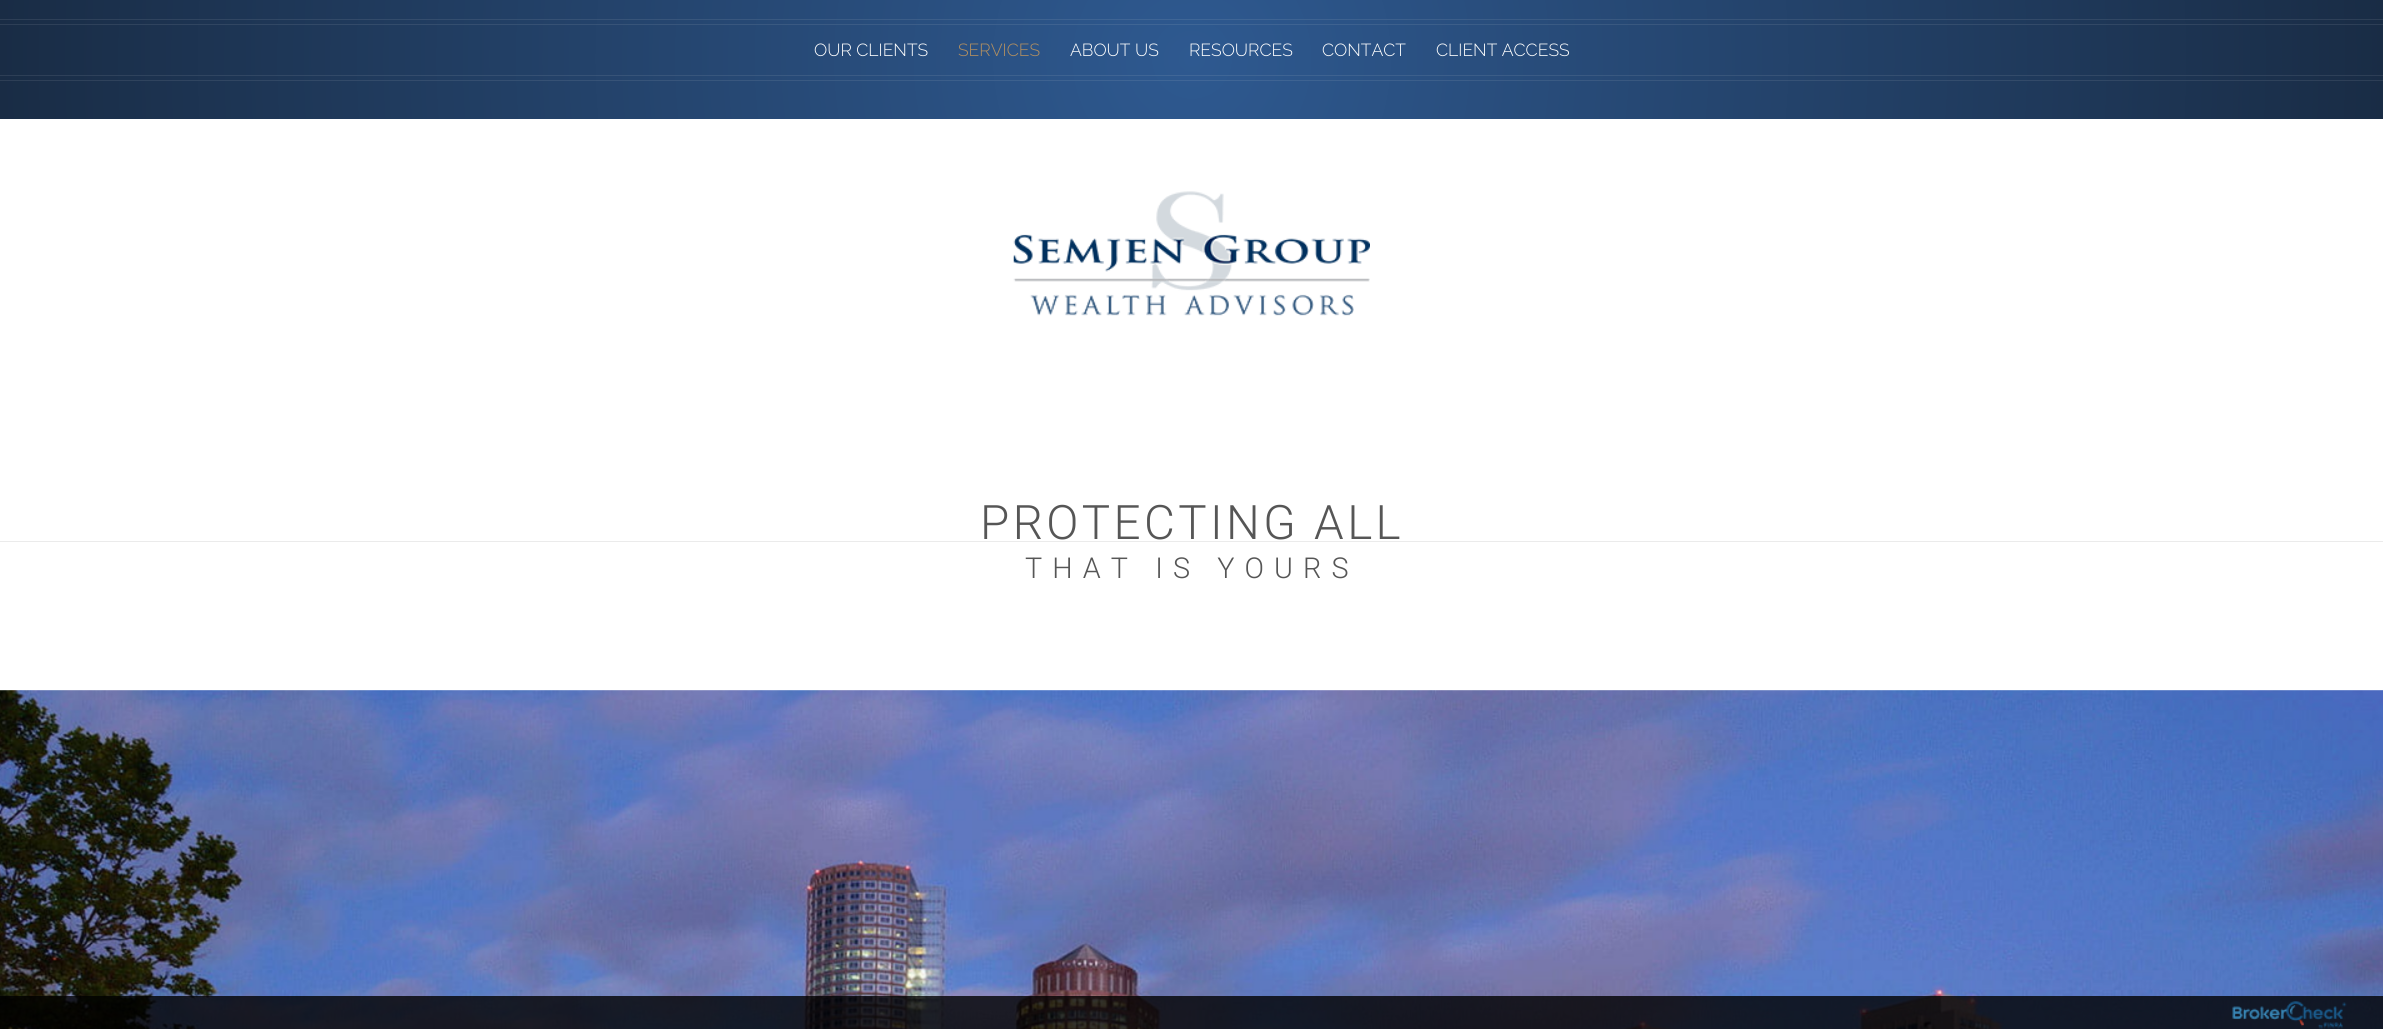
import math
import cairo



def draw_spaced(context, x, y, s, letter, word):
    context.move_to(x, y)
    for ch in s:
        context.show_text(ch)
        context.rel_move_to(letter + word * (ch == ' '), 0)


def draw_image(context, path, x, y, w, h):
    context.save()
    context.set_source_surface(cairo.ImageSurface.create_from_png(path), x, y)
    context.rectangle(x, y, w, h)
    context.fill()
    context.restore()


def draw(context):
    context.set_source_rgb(1, 1, 1)
    context.paint()
    gradient = cairo.RadialGradient(1192, 59, 0, 1192, 59, 1193)
    gradient.add_color_stop_rgba(0, 46 / 255, 89 / 255, 144 / 255, 1)
    gradient.add_color_stop_rgba(1, 25 / 255, 44 / 255, 69 / 255, 1)
    context.set_source(gradient)
    context.rectangle(0, 0, 2383, 119)
    context.fill()
    gradient = cairo.RadialGradient(1192, 59, 0, 1192, 59, 1193)
    gradient.add_color_stop_rgba(0, 64 / 255, 103 / 255, 152 / 255, 1)
    gradient.add_color_stop_rgba(1, 45 / 255, 62 / 255, 85 / 255, 1)
    context.set_source(gradient)
    context.rectangle(0, 75, 2383, 1)
    context.fill()
    context.rectangle(0, 24, 2383, 1)
    context.fill()
    context.rectangle(0, 80, 2383, 1)
    context.fill()
    context.rectangle(0, 19, 2383, 1)
    context.fill()
    draw_image(context, "images/1.png", 1013, 191, 357, 125)
    context.set_source_rgb(235 / 255, 235 / 255, 235 / 255)
    context.rectangle(0, 541, 2383, 1)
    context.fill()
    draw_image(context, "images/2.png", 0, 690, 2383, 339)
    context.set_source_rgba(0, 0, 0, 0.8)
    context.rectangle(0, 996, 2383, 33)
    context.fill()
    draw_image(context, "images/3.png", 2232, 1001, 115, 28)
    context.select_font_face("Raleway Light")
    context.set_font_size(17.5)
    context.set_source_rgb(1, 1, 1)
    context.move_to(814, 56)
    context.show_text("OUR CLIENTS")
    context.set_source_rgb(180 / 255, 144 / 255, 96 / 255)
    context.move_to(958, 56)
    context.show_text("SERVICES")
    context.set_source_rgb(1, 1, 1)
    context.move_to(1070, 56)
    context.show_text("ABOUT US")
    context.move_to(1189, 56)
    context.show_text("RESOURCES")
    context.move_to(1322, 56)
    context.show_text("CONTACT")
    context.move_to(1436, 56)
    context.show_text("CLIENT ACCESS")
    context.select_font_face("Roboto Light")
    context.set_font_size(47.5)
    context.set_source_rgb(86 / 255, 86 / 255, 86 / 255)
    draw_spaced(context, 980, 539, "PROTECTING ALL", 3.4, 0)
    context.set_font_size(28.75)
    draw_spaced(context, 1025, 578, "THAT IS YOURS", 10.1, 0)


surface = cairo.ImageSurface(cairo.Format.RGB24, 2383, 1029)
context = cairo.Context(surface)
options = cairo.FontOptions()
options.set_hint_metrics(cairo.HintMetrics.OFF)
options.set_hint_style(cairo.HintStyle.NONE)
context.set_font_options(options)
context.set_miter_limit(4)
draw(context)
surface.write_to_png("out.png")
